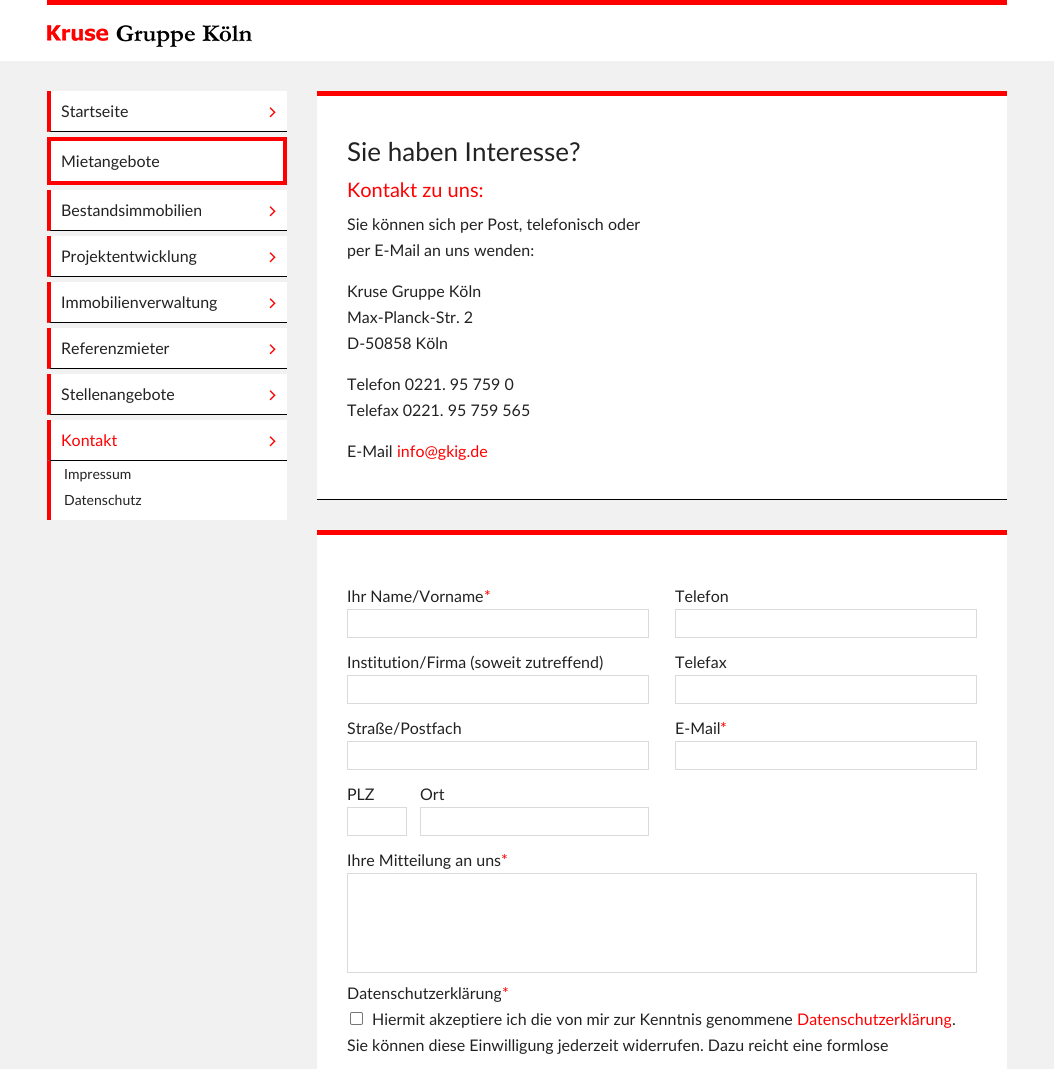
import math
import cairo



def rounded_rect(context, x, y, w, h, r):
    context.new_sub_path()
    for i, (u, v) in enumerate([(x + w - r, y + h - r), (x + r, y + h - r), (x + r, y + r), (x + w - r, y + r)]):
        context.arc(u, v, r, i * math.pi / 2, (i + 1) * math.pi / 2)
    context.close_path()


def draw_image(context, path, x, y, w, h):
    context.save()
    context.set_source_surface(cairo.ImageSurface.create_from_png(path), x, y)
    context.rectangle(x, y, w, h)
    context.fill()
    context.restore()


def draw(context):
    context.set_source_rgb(241 / 255, 241 / 255, 241 / 255)
    context.paint()
    context.set_source_rgb(1, 1, 1)
    context.rectangle(0, 0, 1054, 61)
    context.fill()
    context.set_source_rgb(1, 0, 0)
    context.rectangle(47, 0, 960, 5)
    context.fill()
    draw_image(context, "images/1.png", 47, 25, 205, 22)
    context.set_source_rgb(1, 1, 1)
    context.rectangle(47, 91, 240, 41)
    context.fill()
    draw_image(context, "images/2.png", 269, 107, 7, 11)
    context.set_source_rgb(0, 0, 0)
    context.new_path()
    context.move_to(287, 132)
    context.line_to(47, 132)
    context.line_to(51, 131)
    context.line_to(287, 131)
    context.close_path()
    context.fill()
    context.set_source_rgb(1, 0, 0)
    context.new_path()
    context.move_to(47, 132)
    context.line_to(47, 91)
    context.line_to(51, 91)
    context.line_to(51, 131)
    context.close_path()
    context.fill()
    context.set_source_rgb(1, 1, 1)
    context.rectangle(49, 139, 236, 44)
    context.fill_preserve()
    context.set_source_rgb(1, 0, 0)
    context.set_line_width(4)
    context.stroke()
    context.set_source_rgb(1, 1, 1)
    context.rectangle(47, 190, 240, 41)
    context.fill()
    draw_image(context, "images/2.png", 269, 206, 7, 11)
    context.set_source_rgb(0, 0, 0)
    context.new_path()
    context.move_to(287, 231)
    context.line_to(47, 231)
    context.line_to(51, 230)
    context.line_to(287, 230)
    context.close_path()
    context.fill()
    context.set_source_rgb(1, 0, 0)
    context.new_path()
    context.move_to(47, 231)
    context.line_to(47, 190)
    context.line_to(51, 190)
    context.line_to(51, 230)
    context.close_path()
    context.fill()
    context.set_source_rgb(1, 1, 1)
    context.rectangle(47, 236, 240, 41)
    context.fill()
    draw_image(context, "images/2.png", 269, 252, 7, 11)
    context.set_source_rgb(0, 0, 0)
    context.new_path()
    context.move_to(287, 277)
    context.line_to(47, 277)
    context.line_to(51, 276)
    context.line_to(287, 276)
    context.close_path()
    context.fill()
    context.set_source_rgb(1, 0, 0)
    context.new_path()
    context.move_to(47, 277)
    context.line_to(47, 236)
    context.line_to(51, 236)
    context.line_to(51, 276)
    context.close_path()
    context.fill()
    context.set_source_rgb(1, 1, 1)
    context.rectangle(47, 282, 240, 41)
    context.fill()
    draw_image(context, "images/2.png", 269, 298, 7, 11)
    context.set_source_rgb(0, 0, 0)
    context.new_path()
    context.move_to(287, 323)
    context.line_to(47, 323)
    context.line_to(51, 322)
    context.line_to(287, 322)
    context.close_path()
    context.fill()
    context.set_source_rgb(1, 0, 0)
    context.new_path()
    context.move_to(47, 323)
    context.line_to(47, 282)
    context.line_to(51, 282)
    context.line_to(51, 322)
    context.close_path()
    context.fill()
    context.set_source_rgb(1, 1, 1)
    context.rectangle(47, 328, 240, 41)
    context.fill()
    draw_image(context, "images/2.png", 269, 344, 7, 11)
    context.set_source_rgb(0, 0, 0)
    context.new_path()
    context.move_to(287, 369)
    context.line_to(47, 369)
    context.line_to(51, 368)
    context.line_to(287, 368)
    context.close_path()
    context.fill()
    context.set_source_rgb(1, 0, 0)
    context.new_path()
    context.move_to(47, 369)
    context.line_to(47, 328)
    context.line_to(51, 328)
    context.line_to(51, 368)
    context.close_path()
    context.fill()
    context.set_source_rgb(1, 1, 1)
    context.rectangle(47, 374, 240, 41)
    context.fill()
    draw_image(context, "images/2.png", 269, 390, 7, 11)
    context.set_source_rgb(0, 0, 0)
    context.new_path()
    context.move_to(287, 415)
    context.line_to(47, 415)
    context.line_to(51, 414)
    context.line_to(287, 414)
    context.close_path()
    context.fill()
    context.set_source_rgb(1, 0, 0)
    context.new_path()
    context.move_to(47, 415)
    context.line_to(47, 374)
    context.line_to(51, 374)
    context.line_to(51, 414)
    context.close_path()
    context.fill()
    context.set_source_rgb(1, 1, 1)
    context.rectangle(47, 420, 240, 41)
    context.fill()
    draw_image(context, "images/2.png", 269, 436, 7, 11)
    context.set_source_rgb(0, 0, 0)
    context.new_path()
    context.move_to(287, 461)
    context.line_to(47, 461)
    context.line_to(51, 460)
    context.line_to(287, 460)
    context.close_path()
    context.fill()
    context.set_source_rgb(1, 0, 0)
    context.new_path()
    context.move_to(47, 461)
    context.line_to(47, 420)
    context.line_to(51, 420)
    context.line_to(51, 460)
    context.close_path()
    context.fill()
    context.set_source_rgb(1, 1, 1)
    context.rectangle(51, 461, 236, 59)
    context.fill()
    context.set_source_rgb(1, 0, 0)
    context.rectangle(47, 461, 4, 59)
    context.fill()
    context.set_source_rgb(1, 1, 1)
    context.rectangle(317, 96, 690, 403)
    context.fill()
    context.set_source_rgb(1, 0, 0)
    context.rectangle(317, 91, 690, 5)
    context.fill()
    context.set_source_rgb(0, 0, 0)
    context.rectangle(317, 499, 690, 1)
    context.fill()
    context.set_source_rgb(1, 1, 1)
    context.rectangle(317, 535, 690, 534)
    context.fill()
    context.set_source_rgb(1, 0, 0)
    context.rectangle(317, 530, 690, 5)
    context.fill()
    context.rectangle(347.5, 609.5, 301, 28)
    context.set_source_rgb(218 / 255, 218 / 255, 218 / 255)
    context.set_line_width(1)
    context.stroke()
    context.rectangle(347.5, 675.5, 301, 28)
    context.stroke()
    context.rectangle(347.5, 741.5, 301, 28)
    context.stroke()
    context.rectangle(347.5, 807.5, 59, 28)
    context.stroke()
    context.rectangle(420.5, 807.5, 228, 28)
    context.stroke()
    context.rectangle(675.5, 609.5, 301, 28)
    context.stroke()
    context.rectangle(675.5, 675.5, 301, 28)
    context.stroke()
    context.rectangle(675.5, 741.5, 301, 28)
    context.stroke()
    context.rectangle(347.5, 873.5, 629, 99)
    context.stroke()
    rounded_rect(context, 350.5, 1012.5, 12, 12, 1.5)
    context.set_source_rgb(118 / 255, 118 / 255, 118 / 255)
    context.stroke()
    context.select_font_face("Lato")
    context.set_font_size(16)
    context.set_source_rgb(34 / 255, 34 / 255, 34 / 255)
    context.move_to(61, 117)
    context.show_text("Startseite")
    context.move_to(61, 167)
    context.show_text("Mietangebote")
    context.move_to(61, 216)
    context.show_text("Bestandsimmobilien")
    context.move_to(61, 262)
    context.show_text("Projektentwicklung")
    context.move_to(61, 308)
    context.show_text("Immobilienverwaltung")
    context.move_to(61, 354)
    context.show_text("Referenzmieter")
    context.move_to(61, 400)
    context.show_text("Stellenangebote")
    context.set_source_rgb(1, 0, 0)
    context.move_to(61, 446)
    context.show_text("Kontakt")
    context.set_font_size(14)
    context.set_source_rgb(34 / 255, 34 / 255, 34 / 255)
    context.move_to(64, 479)
    context.show_text("Impressum")
    context.move_to(64, 505)
    context.show_text("Datenschutz")
    context.set_font_size(26)
    context.move_to(347, 161)
    context.show_text("Sie haben Interesse?")
    context.set_font_size(20)
    context.set_source_rgb(1, 0, 0)
    context.move_to(347, 197)
    context.show_text("Kontakt zu uns:")
    context.set_font_size(16)
    context.set_source_rgb(34 / 255, 34 / 255, 34 / 255)
    context.move_to(347, 230)
    context.show_text("Sie können sich per Post, telefonisch oder")
    context.move_to(347, 256)
    context.show_text("per E-Mail an uns wenden:")
    context.move_to(347, 297)
    context.show_text("Kruse Gruppe Köln")
    context.move_to(347, 323)
    context.show_text("Max-Planck-Str. 2")
    context.move_to(347, 349)
    context.show_text("D-50858 Köln")
    context.move_to(347, 390)
    context.show_text("Telefon 0221. 95 759 0")
    context.move_to(347, 416)
    context.show_text("Telefax 0221. 95 759 565")
    context.move_to(347, 457)
    context.show_text("E-Mail")
    context.set_source_rgb(1, 0, 0)
    context.move_to(397, 457)
    context.show_text("info@gkig.de")
    context.set_source_rgb(34 / 255, 34 / 255, 34 / 255)
    context.move_to(347, 602)
    context.show_text("Ihr Name/Vorname")
    context.set_source_rgb(1, 0, 0)
    context.move_to(484, 602)
    context.show_text("*")
    context.set_source_rgb(34 / 255, 34 / 255, 34 / 255)
    context.move_to(347, 668)
    context.show_text("Institution/Firma (soweit zutreffend)")
    context.move_to(347, 734)
    context.show_text("Straße/Postfach")
    context.move_to(347, 800)
    context.show_text("PLZ")
    context.move_to(420, 800)
    context.show_text("Ort")
    context.move_to(675, 602)
    context.show_text("Telefon")
    context.move_to(675, 668)
    context.show_text("Telefax")
    context.move_to(675, 734)
    context.show_text("E-Mail")
    context.set_source_rgb(1, 0, 0)
    context.move_to(720, 734)
    context.show_text("*")
    context.set_source_rgb(34 / 255, 34 / 255, 34 / 255)
    context.move_to(347, 866)
    context.show_text("Ihre Mitteilung an uns")
    context.set_source_rgb(1, 0, 0)
    context.move_to(501, 866)
    context.show_text("*")
    context.set_source_rgb(34 / 255, 34 / 255, 34 / 255)
    context.move_to(347, 999)
    context.show_text("Datenschutzerklärung")
    context.set_source_rgb(1, 0, 0)
    context.move_to(502, 999)
    context.show_text("*")
    context.set_source_rgb(34 / 255, 34 / 255, 34 / 255)
    context.move_to(372, 1025)
    context.show_text("Hiermit akzeptiere ich die von mir zur Kenntnis genommene")
    context.set_source_rgb(1, 0, 0)
    context.move_to(797, 1025)
    context.show_text("Datenschutzerklärung")
    context.set_source_rgb(34 / 255, 34 / 255, 34 / 255)
    context.move_to(952, 1025)
    context.show_text(".")
    context.move_to(347, 1051)
    context.show_text("Sie können diese Einwilligung jederzeit widerrufen. Dazu reicht eine formlose")


surface = cairo.ImageSurface(cairo.Format.RGB24, 1054, 1069)
context = cairo.Context(surface)
options = cairo.FontOptions()
options.set_hint_metrics(cairo.HintMetrics.OFF)
options.set_hint_style(cairo.HintStyle.NONE)
context.set_font_options(options)
context.set_miter_limit(4)
draw(context)
surface.write_to_png("out.png")
